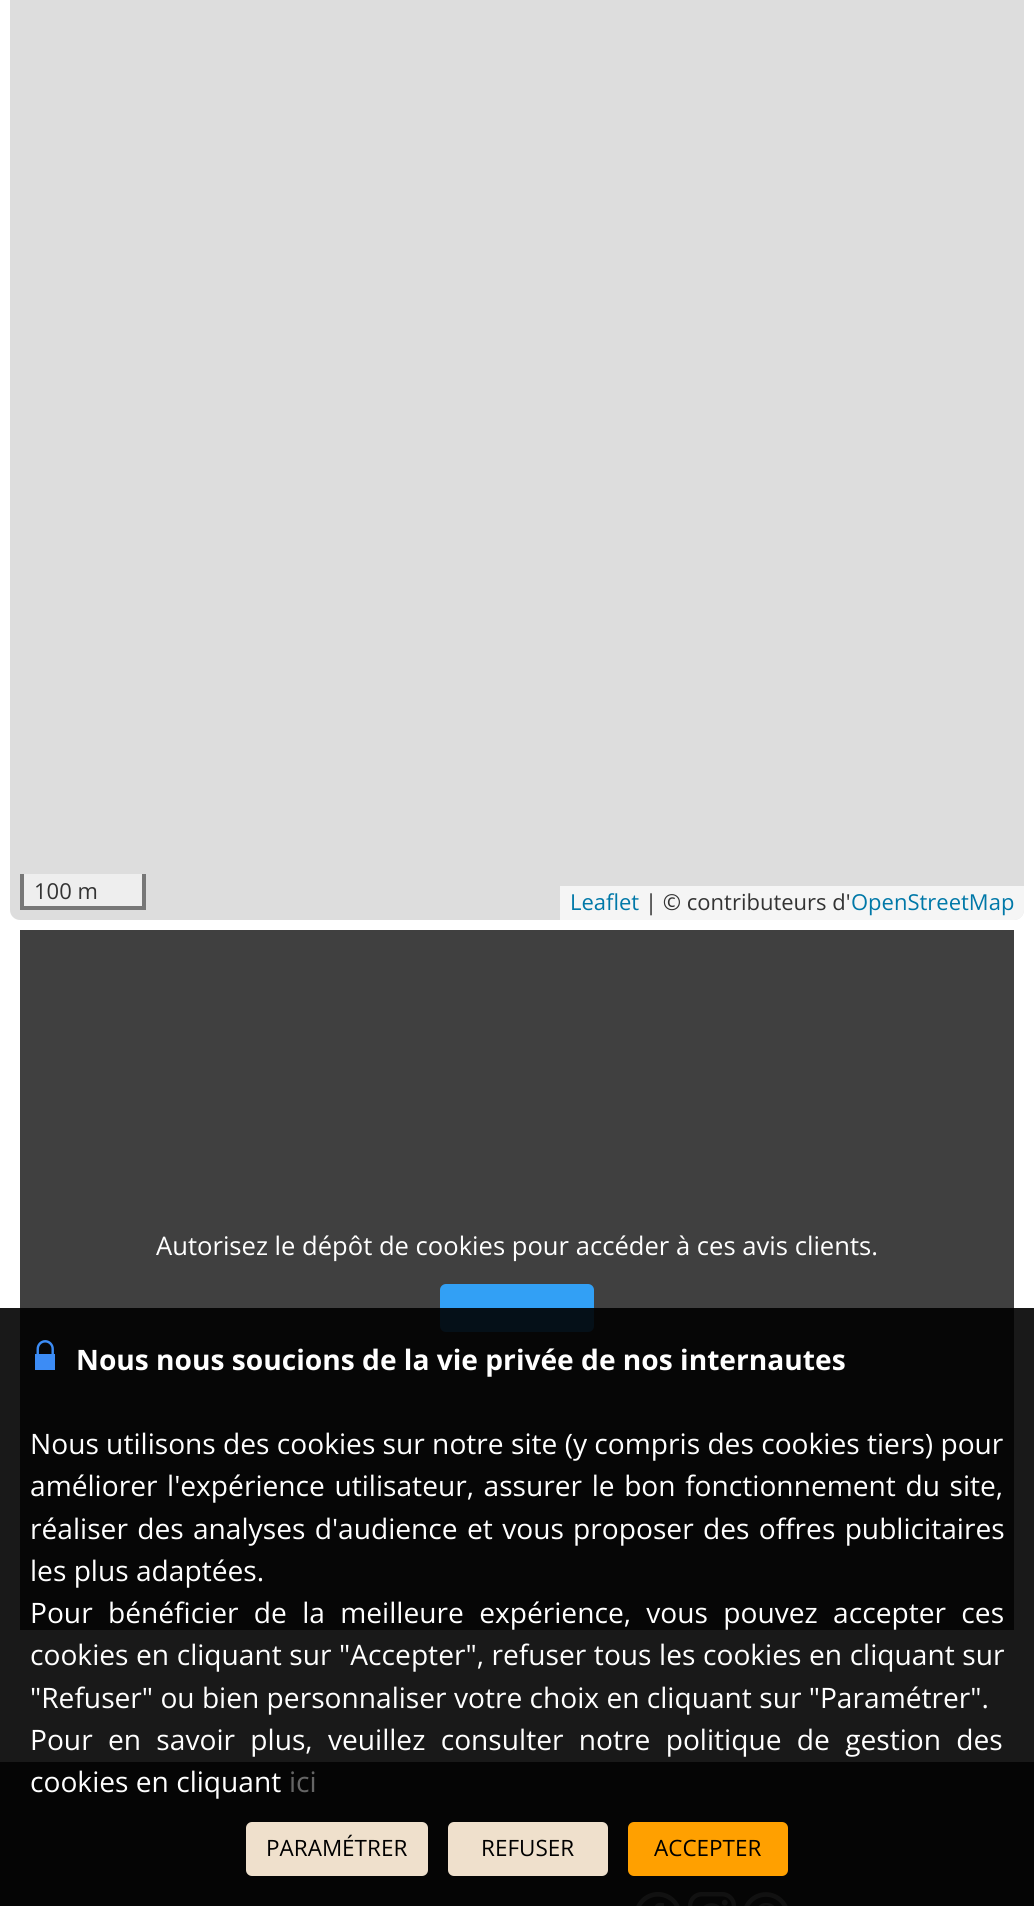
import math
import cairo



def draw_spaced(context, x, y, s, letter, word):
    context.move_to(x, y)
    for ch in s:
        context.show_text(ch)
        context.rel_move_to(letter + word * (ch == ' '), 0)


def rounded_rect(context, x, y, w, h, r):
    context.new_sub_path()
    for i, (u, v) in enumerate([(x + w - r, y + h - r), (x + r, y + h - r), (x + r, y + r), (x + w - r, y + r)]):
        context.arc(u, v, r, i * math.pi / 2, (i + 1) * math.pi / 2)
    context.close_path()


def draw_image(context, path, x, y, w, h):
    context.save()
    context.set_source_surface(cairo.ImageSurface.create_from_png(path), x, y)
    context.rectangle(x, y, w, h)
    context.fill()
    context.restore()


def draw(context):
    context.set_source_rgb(1, 1, 1)
    context.paint()
    context.set_source_rgb(221 / 255, 221 / 255, 221 / 255)
    rounded_rect(context, 10, -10, 1014, 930, 10)
    context.fill()
    context.set_source_rgb(238 / 255, 238 / 255, 238 / 255)
    context.rectangle(24, 874, 118, 32)
    context.fill()
    context.set_source_rgb(119 / 255, 119 / 255, 119 / 255)
    context.rectangle(142, 874, 4, 36)
    context.fill()
    context.rectangle(20, 906, 126, 4)
    context.fill()
    context.rectangle(20, 874, 4, 36)
    context.fill()
    context.set_source_rgba(1, 1, 1, 0.7)
    context.new_path()
    context.move_to(560, 886)
    context.line_to(1024, 886)
    context.line_to(1024, 910)
    context.curve_to(1024, 915.5, 1019.5, 920, 1014, 920)
    context.line_to(560, 920)
    context.close_path()
    context.fill()
    context.set_source_rgb(64 / 255, 64 / 255, 64 / 255)
    context.rectangle(20, 930, 994, 700)
    context.fill()
    context.set_source_rgb(50 / 255, 160 / 255, 245 / 255)
    rounded_rect(context, 440, 1284, 154, 48, 6)
    context.fill()
    context.set_source_rgb(56 / 255, 51 / 255, 46 / 255)
    context.rectangle(0, 1762, 1034, 144)
    context.fill()
    draw_image(context, "images/1.png", 636, 1892, 44, 14)
    draw_image(context, "images/2.png", 688, 1892, 48, 14)
    draw_image(context, "images/3.png", 744, 1892, 44, 14)
    context.set_source_rgba(0, 0, 0, 0.9)
    context.rectangle(0, 1308, 1034, 598)
    context.fill()
    draw_image(context, "images/4.png", 35, 1340, 20, 30)
    context.set_source_rgb(239 / 255, 224 / 255, 204 / 255)
    rounded_rect(context, 246, 1822, 182, 54, 6)
    context.fill()
    rounded_rect(context, 448, 1822, 160, 54, 6)
    context.fill()
    context.set_source_rgb(1, 160 / 255, 0)
    rounded_rect(context, 628, 1822, 160, 54, 6)
    context.fill()
    context.select_font_face("Open Sans")
    context.set_font_size(22)
    context.set_source_rgb(51 / 255, 51 / 255, 51 / 255)
    context.move_to(34, 899)
    context.show_text("100 m")
    context.set_source_rgb(0, 120 / 255, 168 / 255)
    context.move_to(570, 910)
    context.show_text("Leaflet")
    context.set_source_rgb(51 / 255, 51 / 255, 51 / 255)
    context.move_to(645, 910)
    context.show_text("| © contributeurs d'")
    context.set_source_rgb(0, 120 / 255, 168 / 255)
    context.move_to(851, 910)
    context.show_text("OpenStreetMap")
    context.set_font_size(25.6)
    context.set_source_rgb(1, 1, 1)
    context.move_to(156, 1255)
    context.show_text("Autorisez le dépôt de cookies pour accéder à ces avis clients.")
    context.select_font_face("Open Sans", cairo.FontSlant.NORMAL, cairo.FontWeight.BOLD)
    context.set_font_size(28.15)
    context.move_to(76, 1370)
    context.show_text("Nous nous soucions de la vie privée de nos internautes")
    context.select_font_face("Open Sans")
    context.move_to(30, 1454)
    context.show_text("Nous utilisons des cookies sur notre site (y compris des cookies tiers) pour")
    draw_spaced(context, 30, 1496, "améliorer l'expérience utilisateur, assurer le bon fonctionnement du site,", 0, 2.25)
    draw_spaced(context, 30, 1539, "réaliser des analyses d'audience et vous proposer des offres publicitaires", 0, 2)
    context.move_to(30, 1581)
    context.show_text("les plus adaptées.")
    draw_spaced(context, 30, 1623, "Pour bénéficier de la meilleure expérience, vous pouvez accepter ces", 0, 8)
    draw_spaced(context, 30, 1665, "cookies en cliquant sur \"Accepter\", refuser tous les cookies en cliquant sur", 0, 0.25)
    context.move_to(30, 1708)
    context.show_text("\"Refuser\" ou bien personnaliser votre choix en cliquant sur \"Paramétrer\".")
    draw_spaced(context, 30, 1750, "Pour en savoir plus, veuillez consulter notre politique de gestion des", 0, 8)
    context.move_to(30, 1792)
    context.show_text("cookies en cliquant")
    context.set_source_rgb(101 / 255, 101 / 255, 101 / 255)
    context.move_to(289, 1792)
    context.show_text("ici")
    context.set_font_size(22.5)
    context.set_source_rgb(0, 0, 0)
    context.move_to(266, 1856)
    context.show_text("PARAMÉTRER")
    context.move_to(481, 1856)
    context.show_text("REFUSER")
    context.move_to(654, 1856)
    context.show_text("ACCEPTER")


surface = cairo.ImageSurface(cairo.Format.RGB24, 1034, 1906)
context = cairo.Context(surface)
options = cairo.FontOptions()
options.set_hint_metrics(cairo.HintMetrics.OFF)
options.set_hint_style(cairo.HintStyle.NONE)
context.set_font_options(options)
context.set_miter_limit(4)
draw(context)
surface.write_to_png("out.png")
